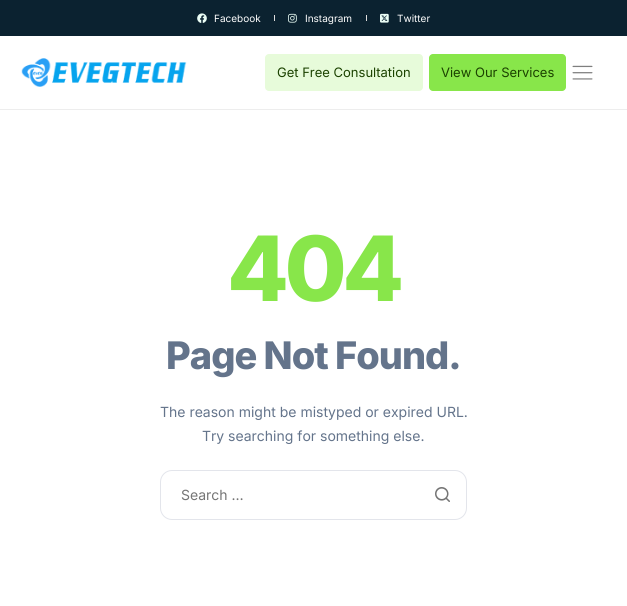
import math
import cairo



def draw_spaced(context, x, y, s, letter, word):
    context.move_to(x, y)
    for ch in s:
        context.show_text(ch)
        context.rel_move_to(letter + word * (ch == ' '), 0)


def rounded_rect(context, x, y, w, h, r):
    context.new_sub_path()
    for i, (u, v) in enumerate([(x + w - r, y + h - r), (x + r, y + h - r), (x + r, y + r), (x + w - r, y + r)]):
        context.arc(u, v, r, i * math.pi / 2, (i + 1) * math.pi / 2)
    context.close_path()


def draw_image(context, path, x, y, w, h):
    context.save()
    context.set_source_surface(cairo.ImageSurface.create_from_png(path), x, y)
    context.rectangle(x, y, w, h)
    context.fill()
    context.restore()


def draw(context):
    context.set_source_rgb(1, 1, 1)
    context.paint()
    context.set_source_rgb(11 / 255, 34 / 255, 48 / 255)
    context.rectangle(0, 0, 627, 36)
    context.fill()
    draw_image(context, "images/1.png", 197, 13, 10, 10)
    context.set_source_rgb(221 / 255, 221 / 255, 221 / 255)
    context.rectangle(274, 15, 1, 6)
    context.fill()
    draw_image(context, "images/2.png", 288, 13, 9, 10)
    context.rectangle(366, 15, 1, 6)
    context.fill()
    draw_image(context, "images/3.png", 380, 13, 9, 10)
    context.set_source_rgb(237 / 255, 237 / 255, 237 / 255)
    context.rectangle(0, 109, 627, 1)
    context.fill()
    draw_image(context, "images/4.png", 21, 58, 166, 29)
    context.set_source_rgb(231 / 255, 251 / 255, 218 / 255)
    rounded_rect(context, 265, 54, 158, 37, 4)
    context.fill()
    context.set_source_rgb(136 / 255, 230 / 255, 74 / 255)
    rounded_rect(context, 429, 54, 137, 37, 4)
    context.fill()
    draw_image(context, "images/5.png", 572, 65, 21, 15)
    rounded_rect(context, 160.5, 470.5, 306, 49, 11.5)
    context.set_source_rgb(227 / 255, 229 / 255, 235 / 255)
    context.set_line_width(1)
    context.stroke()
    draw_image(context, "images/6.png", 435, 487, 15, 15)
    context.select_font_face("Inter")
    context.set_font_size(10)
    context.set_source_rgb(1, 1, 1)
    context.move_to(214, 22)
    context.show_text("Facebook")
    context.move_to(305, 22)
    context.show_text("Instagram")
    context.move_to(397, 22)
    context.show_text("Twitter")
    context.set_font_size(13)
    context.set_source_rgb(27 / 255, 66 / 255, 0)
    context.move_to(277, 77)
    context.show_text("Get Free Consultation")
    context.move_to(441, 77)
    context.show_text("View Our Services")
    context.select_font_face("Inter ExtraBold")
    context.set_font_size(90)
    context.set_source_rgb(136 / 255, 230 / 255, 74 / 255)
    draw_spaced(context, 227, 301, "404", -4.5, 0)
    context.set_font_size(38)
    context.set_source_rgb(100 / 255, 116 / 255, 139 / 255)
    draw_spaced(context, 166, 369, "Page Not Found.", -1, 0)
    context.select_font_face("Inter")
    context.set_font_size(14)
    context.move_to(160, 417)
    context.show_text("The reason might be mistyped or expired URL.")
    context.move_to(202, 441)
    context.show_text("Try searching for something else.")
    context.set_source_rgb(117 / 255, 117 / 255, 117 / 255)
    context.move_to(181, 500)
    context.show_text("Search …")


surface = cairo.ImageSurface(cairo.Format.RGB24, 627, 606)
context = cairo.Context(surface)
options = cairo.FontOptions()
options.set_hint_metrics(cairo.HintMetrics.OFF)
options.set_hint_style(cairo.HintStyle.NONE)
context.set_font_options(options)
context.set_miter_limit(4)
draw(context)
surface.write_to_png("out.png")
